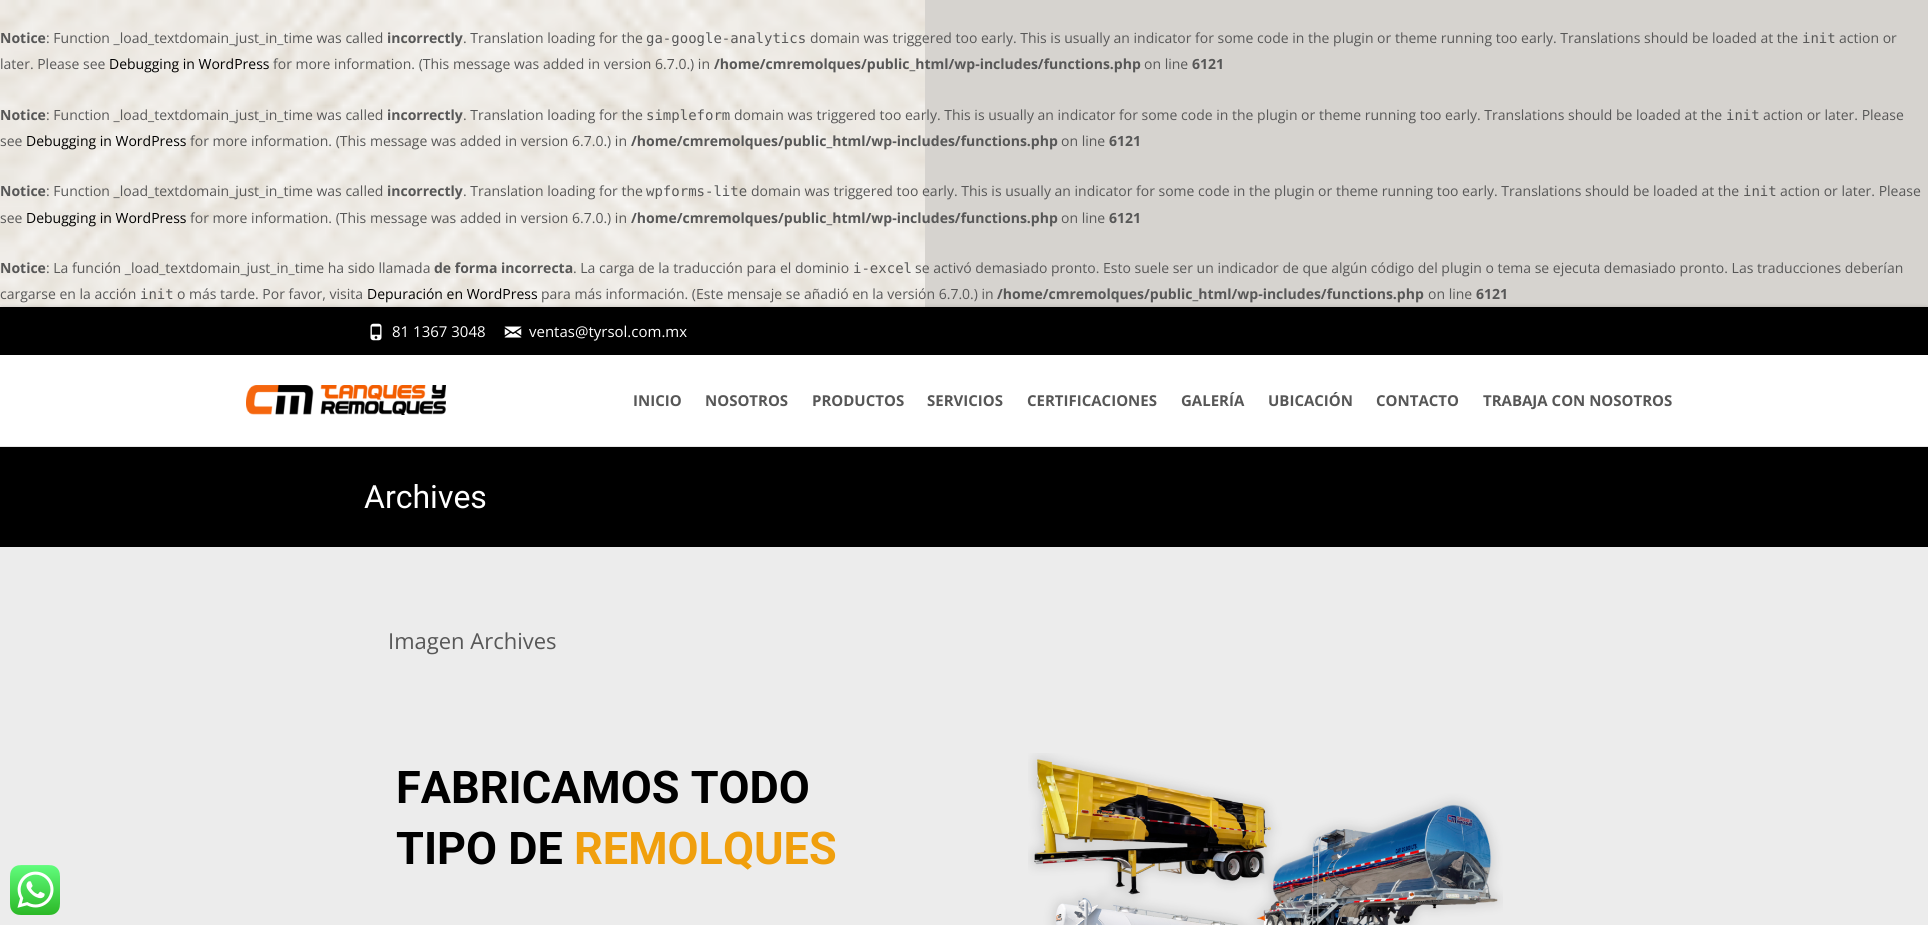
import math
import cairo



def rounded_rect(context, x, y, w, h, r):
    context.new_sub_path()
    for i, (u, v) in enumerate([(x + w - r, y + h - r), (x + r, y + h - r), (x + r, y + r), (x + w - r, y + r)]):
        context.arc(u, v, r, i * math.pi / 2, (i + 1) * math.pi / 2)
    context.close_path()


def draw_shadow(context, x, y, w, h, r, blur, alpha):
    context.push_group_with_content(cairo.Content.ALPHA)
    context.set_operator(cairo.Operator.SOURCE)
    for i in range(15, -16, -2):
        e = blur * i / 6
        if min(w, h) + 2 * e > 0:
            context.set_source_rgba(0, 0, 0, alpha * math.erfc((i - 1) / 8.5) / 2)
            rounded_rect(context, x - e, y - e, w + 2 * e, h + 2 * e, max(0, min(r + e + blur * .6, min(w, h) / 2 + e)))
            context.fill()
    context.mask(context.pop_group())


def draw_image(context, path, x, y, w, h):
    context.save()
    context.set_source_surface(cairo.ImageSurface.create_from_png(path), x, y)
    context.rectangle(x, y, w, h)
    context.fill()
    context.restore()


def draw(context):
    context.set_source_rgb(214 / 255, 211 / 255, 207 / 255)
    context.paint()
    draw_image(context, "images/1.png", 0, 0, 925, 307)
    context.set_source_rgb(0, 0, 0)
    draw_shadow(context, 0, 307, 1928, 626, 2, 2, 0.1)
    draw_shadow(context, 0, 307, 1928, 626, 2, 2, 0.1)
    context.set_source_rgb(236 / 255, 236 / 255, 236 / 255)
    context.rectangle(0, 547, 1928, 378)
    context.fill()
    context.set_source_rgb(0, 0, 0)
    context.rectangle(0, 307, 1928, 48)
    context.fill()
    draw_image(context, "images/2.png", 370, 323, 12, 18)
    draw_image(context, "images/3.png", 504, 326, 18, 12)
    context.set_source_rgb(1, 1, 1)
    context.rectangle(0, 355, 1928, 91)
    context.fill()
    context.set_source_rgb(231 / 255, 231 / 255, 231 / 255)
    context.rectangle(0, 446, 1928, 1)
    context.fill()
    draw_image(context, "images/4.png", 246, 385, 200, 30)
    context.set_source_rgb(0, 0, 0)
    context.rectangle(0, 447, 1928, 100)
    context.fill()
    draw_image(context, "images/5.png", 1028, 753, 475, 172)
    draw_image(context, "images/6.png", 10, 865, 50, 50)
    context.select_font_face("Open Sans", cairo.FontSlant.NORMAL, cairo.FontWeight.BOLD)
    context.set_font_size(14)
    context.set_source_rgb(87 / 255, 87 / 255, 87 / 255)
    context.move_to(0, 43)
    context.show_text("Notice")
    context.select_font_face("Open Sans")
    context.move_to(46, 43)
    context.show_text(": Function _load_textdomain_just_in_time was called")
    context.select_font_face("Open Sans", cairo.FontSlant.NORMAL, cairo.FontWeight.BOLD)
    context.move_to(387, 43)
    context.show_text("incorrectly")
    context.select_font_face("Open Sans")
    context.move_to(463, 43)
    context.show_text(". Translation loading for the")
    context.select_font_face("DejaVu Sans Mono")
    context.move_to(646, 43)
    context.show_text("ga-google-analytics")
    context.select_font_face("Open Sans")
    context.move_to(810, 43)
    context.show_text("domain was triggered too early. This is usually an indicator for some code in the plugin or theme running too early. Translations should be loaded at the")
    context.select_font_face("DejaVu Sans Mono")
    context.move_to(1802, 43)
    context.show_text("init")
    context.select_font_face("Open Sans")
    context.move_to(1839, 43)
    context.show_text("action or")
    context.move_to(0, 69)
    context.show_text("later. Please see")
    context.set_source_rgb(0, 0, 0)
    context.move_to(109, 69)
    context.show_text("Debugging in WordPress")
    context.set_source_rgb(87 / 255, 87 / 255, 87 / 255)
    context.move_to(273, 69)
    context.show_text("for more information. (This message was added in version 6.7.0.) in")
    context.select_font_face("Open Sans", cairo.FontSlant.NORMAL, cairo.FontWeight.BOLD)
    context.move_to(714, 69)
    context.show_text("/home/cmremolques/public_html/wp-includes/functions.php")
    context.select_font_face("Open Sans")
    context.move_to(1144, 69)
    context.show_text("on line")
    context.select_font_face("Open Sans", cairo.FontSlant.NORMAL, cairo.FontWeight.BOLD)
    context.move_to(1192, 69)
    context.show_text("6121")
    context.move_to(0, 120)
    context.show_text("Notice")
    context.select_font_face("Open Sans")
    context.move_to(46, 120)
    context.show_text(": Function _load_textdomain_just_in_time was called")
    context.select_font_face("Open Sans", cairo.FontSlant.NORMAL, cairo.FontWeight.BOLD)
    context.move_to(387, 120)
    context.show_text("incorrectly")
    context.select_font_face("Open Sans")
    context.move_to(463, 120)
    context.show_text(". Translation loading for the")
    context.select_font_face("DejaVu Sans Mono")
    context.move_to(646, 120)
    context.show_text("simpleform")
    context.select_font_face("Open Sans")
    context.move_to(734, 120)
    context.show_text("domain was triggered too early. This is usually an indicator for some code in the plugin or theme running too early. Translations should be loaded at the")
    context.select_font_face("DejaVu Sans Mono")
    context.move_to(1726, 120)
    context.show_text("init")
    context.select_font_face("Open Sans")
    context.move_to(1763, 120)
    context.show_text("action or later. Please")
    context.move_to(0, 146)
    context.show_text("see")
    context.set_source_rgb(0, 0, 0)
    context.move_to(26, 146)
    context.show_text("Debugging in WordPress")
    context.set_source_rgb(87 / 255, 87 / 255, 87 / 255)
    context.move_to(190, 146)
    context.show_text("for more information. (This message was added in version 6.7.0.) in")
    context.select_font_face("Open Sans", cairo.FontSlant.NORMAL, cairo.FontWeight.BOLD)
    context.move_to(631, 146)
    context.show_text("/home/cmremolques/public_html/wp-includes/functions.php")
    context.select_font_face("Open Sans")
    context.move_to(1061, 146)
    context.show_text("on line")
    context.select_font_face("Open Sans", cairo.FontSlant.NORMAL, cairo.FontWeight.BOLD)
    context.move_to(1109, 146)
    context.show_text("6121")
    context.move_to(0, 196)
    context.show_text("Notice")
    context.select_font_face("Open Sans")
    context.move_to(46, 196)
    context.show_text(": Function _load_textdomain_just_in_time was called")
    context.select_font_face("Open Sans", cairo.FontSlant.NORMAL, cairo.FontWeight.BOLD)
    context.move_to(387, 196)
    context.show_text("incorrectly")
    context.select_font_face("Open Sans")
    context.move_to(463, 196)
    context.show_text(". Translation loading for the")
    context.select_font_face("DejaVu Sans Mono")
    context.move_to(646, 196)
    context.show_text("wpforms-lite")
    context.select_font_face("Open Sans")
    context.move_to(751, 196)
    context.show_text("domain was triggered too early. This is usually an indicator for some code in the plugin or theme running too early. Translations should be loaded at the")
    context.select_font_face("DejaVu Sans Mono")
    context.move_to(1743, 196)
    context.show_text("init")
    context.select_font_face("Open Sans")
    context.move_to(1780, 196)
    context.show_text("action or later. Please")
    context.move_to(0, 223)
    context.show_text("see")
    context.set_source_rgb(0, 0, 0)
    context.move_to(26, 223)
    context.show_text("Debugging in WordPress")
    context.set_source_rgb(87 / 255, 87 / 255, 87 / 255)
    context.move_to(190, 223)
    context.show_text("for more information. (This message was added in version 6.7.0.) in")
    context.select_font_face("Open Sans", cairo.FontSlant.NORMAL, cairo.FontWeight.BOLD)
    context.move_to(631, 223)
    context.show_text("/home/cmremolques/public_html/wp-includes/functions.php")
    context.select_font_face("Open Sans")
    context.move_to(1061, 223)
    context.show_text("on line")
    context.select_font_face("Open Sans", cairo.FontSlant.NORMAL, cairo.FontWeight.BOLD)
    context.move_to(1109, 223)
    context.show_text("6121")
    context.move_to(0, 273)
    context.show_text("Notice")
    context.select_font_face("Open Sans")
    context.move_to(46, 273)
    context.show_text(": La función _load_textdomain_just_in_time ha sido llamada")
    context.select_font_face("Open Sans", cairo.FontSlant.NORMAL, cairo.FontWeight.BOLD)
    context.move_to(434, 273)
    context.show_text("de forma incorrecta")
    context.select_font_face("Open Sans")
    context.move_to(573, 273)
    context.show_text(". La carga de la traducción para el dominio")
    context.select_font_face("DejaVu Sans Mono")
    context.move_to(853, 273)
    context.show_text("i-excel")
    context.select_font_face("Open Sans")
    context.move_to(915, 273)
    context.show_text("se activó demasiado pronto. Esto suele ser un indicador de que algún código del plugin o tema se ejecuta demasiado pronto. Las traducciones deberían")
    context.move_to(0, 299)
    context.show_text("cargarse en la acción")
    context.select_font_face("DejaVu Sans Mono")
    context.move_to(140, 299)
    context.show_text("init")
    context.select_font_face("Open Sans")
    context.move_to(177, 299)
    context.show_text("o más tarde. Por favor, visita")
    context.set_source_rgb(0, 0, 0)
    context.move_to(367, 299)
    context.show_text("Depuración en WordPress")
    context.set_source_rgb(87 / 255, 87 / 255, 87 / 255)
    context.move_to(541, 299)
    context.show_text("para más información. (Este mensaje se añadió en la versión 6.7.0.) in")
    context.select_font_face("Open Sans", cairo.FontSlant.NORMAL, cairo.FontWeight.BOLD)
    context.move_to(997, 299)
    context.show_text("/home/cmremolques/public_html/wp-includes/functions.php")
    context.select_font_face("Open Sans")
    context.move_to(1428, 299)
    context.show_text("on line")
    context.select_font_face("Open Sans", cairo.FontSlant.NORMAL, cairo.FontWeight.BOLD)
    context.move_to(1476, 299)
    context.show_text("6121")
    context.select_font_face("Open Sans")
    context.set_font_size(15)
    context.set_source_rgb(1, 1, 1)
    context.move_to(392, 337)
    context.show_text("81 1367 3048")
    context.move_to(529, 337)
    context.show_text("ventas@tyrsol.com.mx")
    context.select_font_face("Open Sans", cairo.FontSlant.NORMAL, cairo.FontWeight.BOLD)
    context.set_source_rgb(87 / 255, 87 / 255, 87 / 255)
    context.move_to(633, 406)
    context.show_text("INICIO")
    context.move_to(705, 406)
    context.show_text("NOSOTROS")
    context.move_to(812, 406)
    context.show_text("PRODUCTOS")
    context.move_to(927, 406)
    context.show_text("SERVICIOS")
    context.move_to(1027, 406)
    context.show_text("CERTIFICACIONES")
    context.move_to(1181, 406)
    context.show_text("GALERÍA")
    context.move_to(1268, 406)
    context.show_text("UBICACIÓN")
    context.move_to(1376, 406)
    context.show_text("CONTACTO")
    context.move_to(1483, 406)
    context.show_text("TRABAJA CON NOSOTROS")
    context.select_font_face("Roboto")
    context.set_font_size(32)
    context.set_source_rgb(1, 1, 1)
    context.move_to(364, 508)
    context.show_text("Archives")
    context.select_font_face("Open Sans")
    context.set_font_size(22)
    context.set_source_rgb(87 / 255, 87 / 255, 87 / 255)
    context.move_to(388, 649)
    context.show_text("Imagen Archives")
    context.select_font_face("Roboto", cairo.FontSlant.NORMAL, cairo.FontWeight.BOLD)
    context.set_font_size(45)
    context.set_source_rgb(0, 0, 0)
    context.move_to(396, 803)
    context.show_text("FABRICAMOS TODO")
    context.move_to(396, 864)
    context.show_text("TIPO DE")
    context.set_source_rgb(240 / 255, 159 / 255, 13 / 255)
    context.move_to(574, 864)
    context.show_text("REMOLQUES")


surface = cairo.ImageSurface(cairo.Format.RGB24, 1928, 925)
context = cairo.Context(surface)
options = cairo.FontOptions()
options.set_hint_metrics(cairo.HintMetrics.OFF)
options.set_hint_style(cairo.HintStyle.NONE)
context.set_font_options(options)
context.set_miter_limit(4)
draw(context)
surface.write_to_png("out.png")
